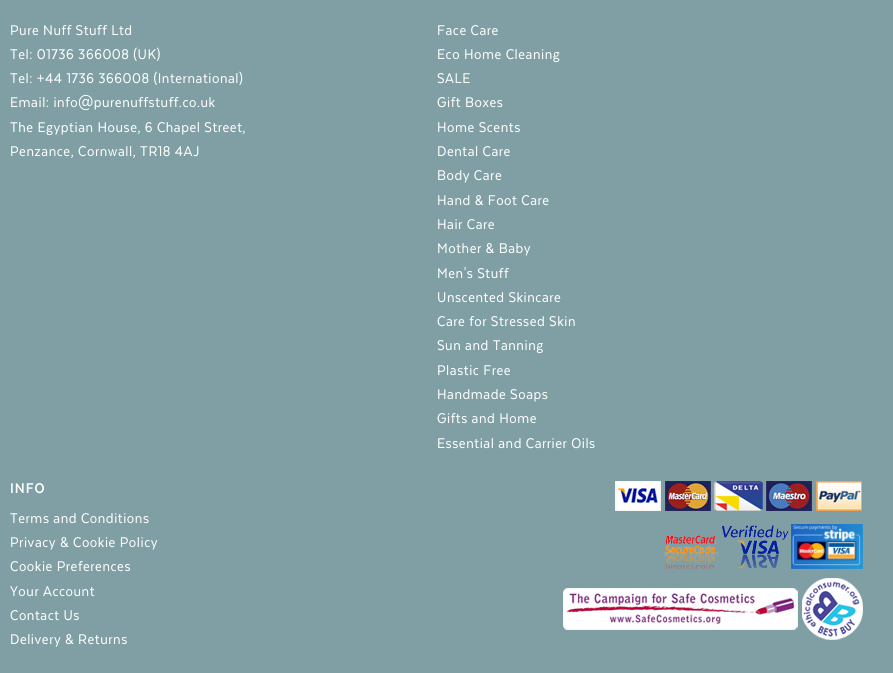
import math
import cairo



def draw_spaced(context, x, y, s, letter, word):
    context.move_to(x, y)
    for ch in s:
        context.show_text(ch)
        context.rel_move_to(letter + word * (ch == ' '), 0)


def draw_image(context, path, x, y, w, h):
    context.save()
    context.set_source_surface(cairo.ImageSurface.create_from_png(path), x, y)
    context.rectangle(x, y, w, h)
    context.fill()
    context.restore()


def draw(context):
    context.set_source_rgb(128 / 255, 159 / 255, 164 / 255)
    context.paint()
    draw_image(context, "images/1.png", 615, 481, 247, 30)
    draw_image(context, "images/2.png", 664, 525, 125, 44)
    draw_image(context, "images/3.png", 791, 524, 72, 45)
    draw_image(context, "images/4.png", 563, 578, 300, 62)
    context.select_font_face("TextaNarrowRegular")
    context.set_font_size(16.25)
    context.set_source_rgb(1, 1, 1)
    draw_spaced(context, 10, 35, "Pure Nuff Stuff Ltd", 0.55, 0)
    draw_spaced(context, 10, 59, "Tel: 01736 366008 (UK)", 0.55, 0)
    draw_spaced(context, 10, 83, "Tel: +44 1736 366008 (International)", 0.55, 0)
    draw_spaced(context, 10, 107, "Email: info@purenuffstuff.co.uk", 0.55, 0)
    draw_spaced(context, 10, 132, "The Egyptian House, 6 Chapel Street,", 0.55, 0)
    draw_spaced(context, 10, 156, "Penzance, Cornwall, TR18 4AJ", 0.55, 0)
    draw_spaced(context, 437, 35, "Face Care", 0.55, 0)
    draw_spaced(context, 437, 59, "Eco Home Cleaning", 0.55, 0)
    draw_spaced(context, 437, 83, "SALE", 0.55, 0)
    draw_spaced(context, 437, 107, "Gift Boxes", 0.55, 0)
    draw_spaced(context, 437, 132, "Home Scents", 0.55, 0)
    draw_spaced(context, 437, 156, "Dental Care", 0.55, 0)
    draw_spaced(context, 437, 180, "Body Care", 0.55, 0)
    draw_spaced(context, 437, 205, "Hand & Foot Care", 0.55, 0)
    draw_spaced(context, 437, 229, "Hair Care", 0.55, 0)
    draw_spaced(context, 437, 253, "Mother & Baby", 0.55, 0)
    draw_spaced(context, 437, 278, "Men's Stuff", 0.55, 0)
    draw_spaced(context, 437, 302, "Unscented Skincare", 0.55, 0)
    draw_spaced(context, 437, 326, "Care for Stressed Skin", 0.55, 0)
    draw_spaced(context, 437, 350, "Sun and Tanning", 0.55, 0)
    draw_spaced(context, 437, 375, "Plastic Free", 0.55, 0)
    draw_spaced(context, 437, 399, "Handmade Soaps", 0.55, 0)
    draw_spaced(context, 437, 423, "Gifts and Home", 0.55, 0)
    draw_spaced(context, 437, 448, "Essential and Carrier Oils", 0.55, 0)
    context.select_font_face("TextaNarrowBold", cairo.FontSlant.NORMAL, cairo.FontWeight.BOLD)
    draw_spaced(context, 10, 493, "INFO", 1, 0)
    context.select_font_face("TextaNarrowRegular")
    draw_spaced(context, 10, 523, "Terms and Conditions", 0.55, 0)
    draw_spaced(context, 10, 547, "Privacy & Cookie Policy", 0.55, 0)
    draw_spaced(context, 10, 571, "Cookie Preferences", 0.55, 0)
    draw_spaced(context, 10, 596, "Your Account", 0.55, 0)
    draw_spaced(context, 10, 620, "Contact Us", 0.55, 0)
    draw_spaced(context, 10, 644, "Delivery & Returns", 0.55, 0)


surface = cairo.ImageSurface(cairo.Format.RGB24, 893, 673)
context = cairo.Context(surface)
options = cairo.FontOptions()
options.set_hint_metrics(cairo.HintMetrics.OFF)
options.set_hint_style(cairo.HintStyle.NONE)
context.set_font_options(options)
context.set_miter_limit(4)
draw(context)
surface.write_to_png("out.png")
